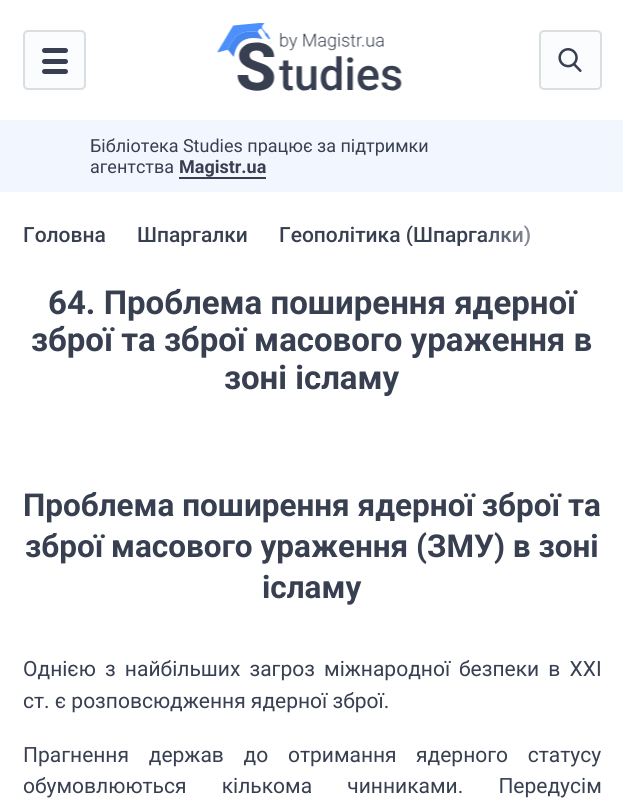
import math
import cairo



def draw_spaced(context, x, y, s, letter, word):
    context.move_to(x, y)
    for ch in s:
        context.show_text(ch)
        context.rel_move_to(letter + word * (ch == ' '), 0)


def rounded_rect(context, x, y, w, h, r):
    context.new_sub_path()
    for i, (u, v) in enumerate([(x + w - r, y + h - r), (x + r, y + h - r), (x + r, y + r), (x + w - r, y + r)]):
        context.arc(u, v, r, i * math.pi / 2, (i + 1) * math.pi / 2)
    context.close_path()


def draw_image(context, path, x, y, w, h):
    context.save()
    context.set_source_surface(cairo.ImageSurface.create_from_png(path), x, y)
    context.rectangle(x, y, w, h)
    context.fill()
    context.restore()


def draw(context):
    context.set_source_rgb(1, 1, 1)
    context.paint()
    context.set_source_rgb(250 / 255, 252 / 255, 254 / 255)
    rounded_rect(context, 24, 31, 61, 58, 4)
    context.fill_preserve()
    context.set_source_rgb(218 / 255, 222 / 255, 225 / 255)
    context.stroke()
    context.set_source_rgb(55 / 255, 63 / 255, 80 / 255)
    rounded_rect(context, 42, 48, 26, 5, 2.5)
    context.fill()
    rounded_rect(context, 42, 59, 26, 5, 2.5)
    context.fill()
    rounded_rect(context, 42, 69, 26, 5, 2.5)
    context.fill()
    draw_image(context, "images/1.png", 217, 23, 185, 68)
    context.set_source_rgb(250 / 255, 252 / 255, 254 / 255)
    rounded_rect(context, 540, 31, 61, 58, 4)
    context.fill_preserve()
    context.set_source_rgb(218 / 255, 222 / 255, 225 / 255)
    context.stroke()
    draw_image(context, "images/2.png", 558, 48, 24, 24)
    context.set_source_rgb(242 / 255, 247 / 255, 1)
    context.rectangle(0, 120, 623, 72)
    context.fill()
    context.set_source_rgb(55 / 255, 63 / 255, 81 / 255)
    context.rectangle(179, 177, 87, 2)
    context.fill()
    context.select_font_face("Roboto")
    context.set_font_size(18)
    context.move_to(90, 152)
    context.show_text("Бібліотека Studies працює за підтримки")
    context.move_to(90, 173)
    context.show_text("агентства")
    context.select_font_face("Roboto", cairo.FontSlant.NORMAL, cairo.FontWeight.BOLD)
    context.move_to(179, 173)
    context.show_text("Magistr.ua")
    context.select_font_face("Roboto Medium")
    context.set_font_size(21)
    context.move_to(23, 242)
    context.show_text("Головна")
    context.save()
    context.rectangle(23, 222, 579, 24)
    context.clip()
    context.move_to(137, 242)
    context.show_text("Шпаргалки")
    context.move_to(279, 242)
    context.show_text("Геополітика (Шпаргалки)")
    context.restore()
    gradient = cairo.LinearGradient(602, 234, 480, 234)
    gradient.add_color_stop_rgba(0, 1, 1, 1, 1)
    gradient.add_color_stop_rgba(1, 1, 1, 1, 0)
    context.set_source(gradient)
    context.rectangle(483, 225, 47, 21)
    context.fill()
    context.select_font_face("Roboto", cairo.FontSlant.NORMAL, cairo.FontWeight.BOLD)
    context.set_font_size(33)
    context.set_source_rgb(55 / 255, 63 / 255, 81 / 255)
    context.move_to(48, 314)
    context.show_text("64. Проблема поширення ядерної")
    context.move_to(31, 351)
    context.show_text("зброї та зброї масового ураження в")
    context.move_to(224, 389)
    context.show_text("зоні ісламу")
    context.set_font_size(31.5)
    context.move_to(23, 516)
    context.show_text("Проблема поширення ядерної зброї та")
    context.move_to(25, 557)
    context.show_text("зброї масового ураження (ЗМУ) в зоні")
    context.move_to(262, 598)
    context.show_text("ісламу")
    context.select_font_face("Roboto")
    context.set_font_size(21)
    draw_spaced(context, 23, 676, "Однією з найбільших загроз міжнародної", 0, 4)
    draw_spaced(context, 459, 676, "безпеки в XXI", 0, 4)
    context.move_to(23, 708)
    context.show_text("ст. є розповсюдження ядерної зброї.")
    draw_spaced(context, 23, 762, "Прагнення держав до отримання", 0, 14.5)
    draw_spaced(context, 416, 762, "ядерного статусу", 0, 14.5)
    draw_spaced(context, 23, 793, "обумовлюються кількома чинниками. Передусім", 0, 30)


surface = cairo.ImageSurface(cairo.Format.RGB24, 623, 811)
context = cairo.Context(surface)
options = cairo.FontOptions()
options.set_hint_metrics(cairo.HintMetrics.OFF)
options.set_hint_style(cairo.HintStyle.NONE)
context.set_font_options(options)
context.set_miter_limit(4)
draw(context)
surface.write_to_png("out.png")
